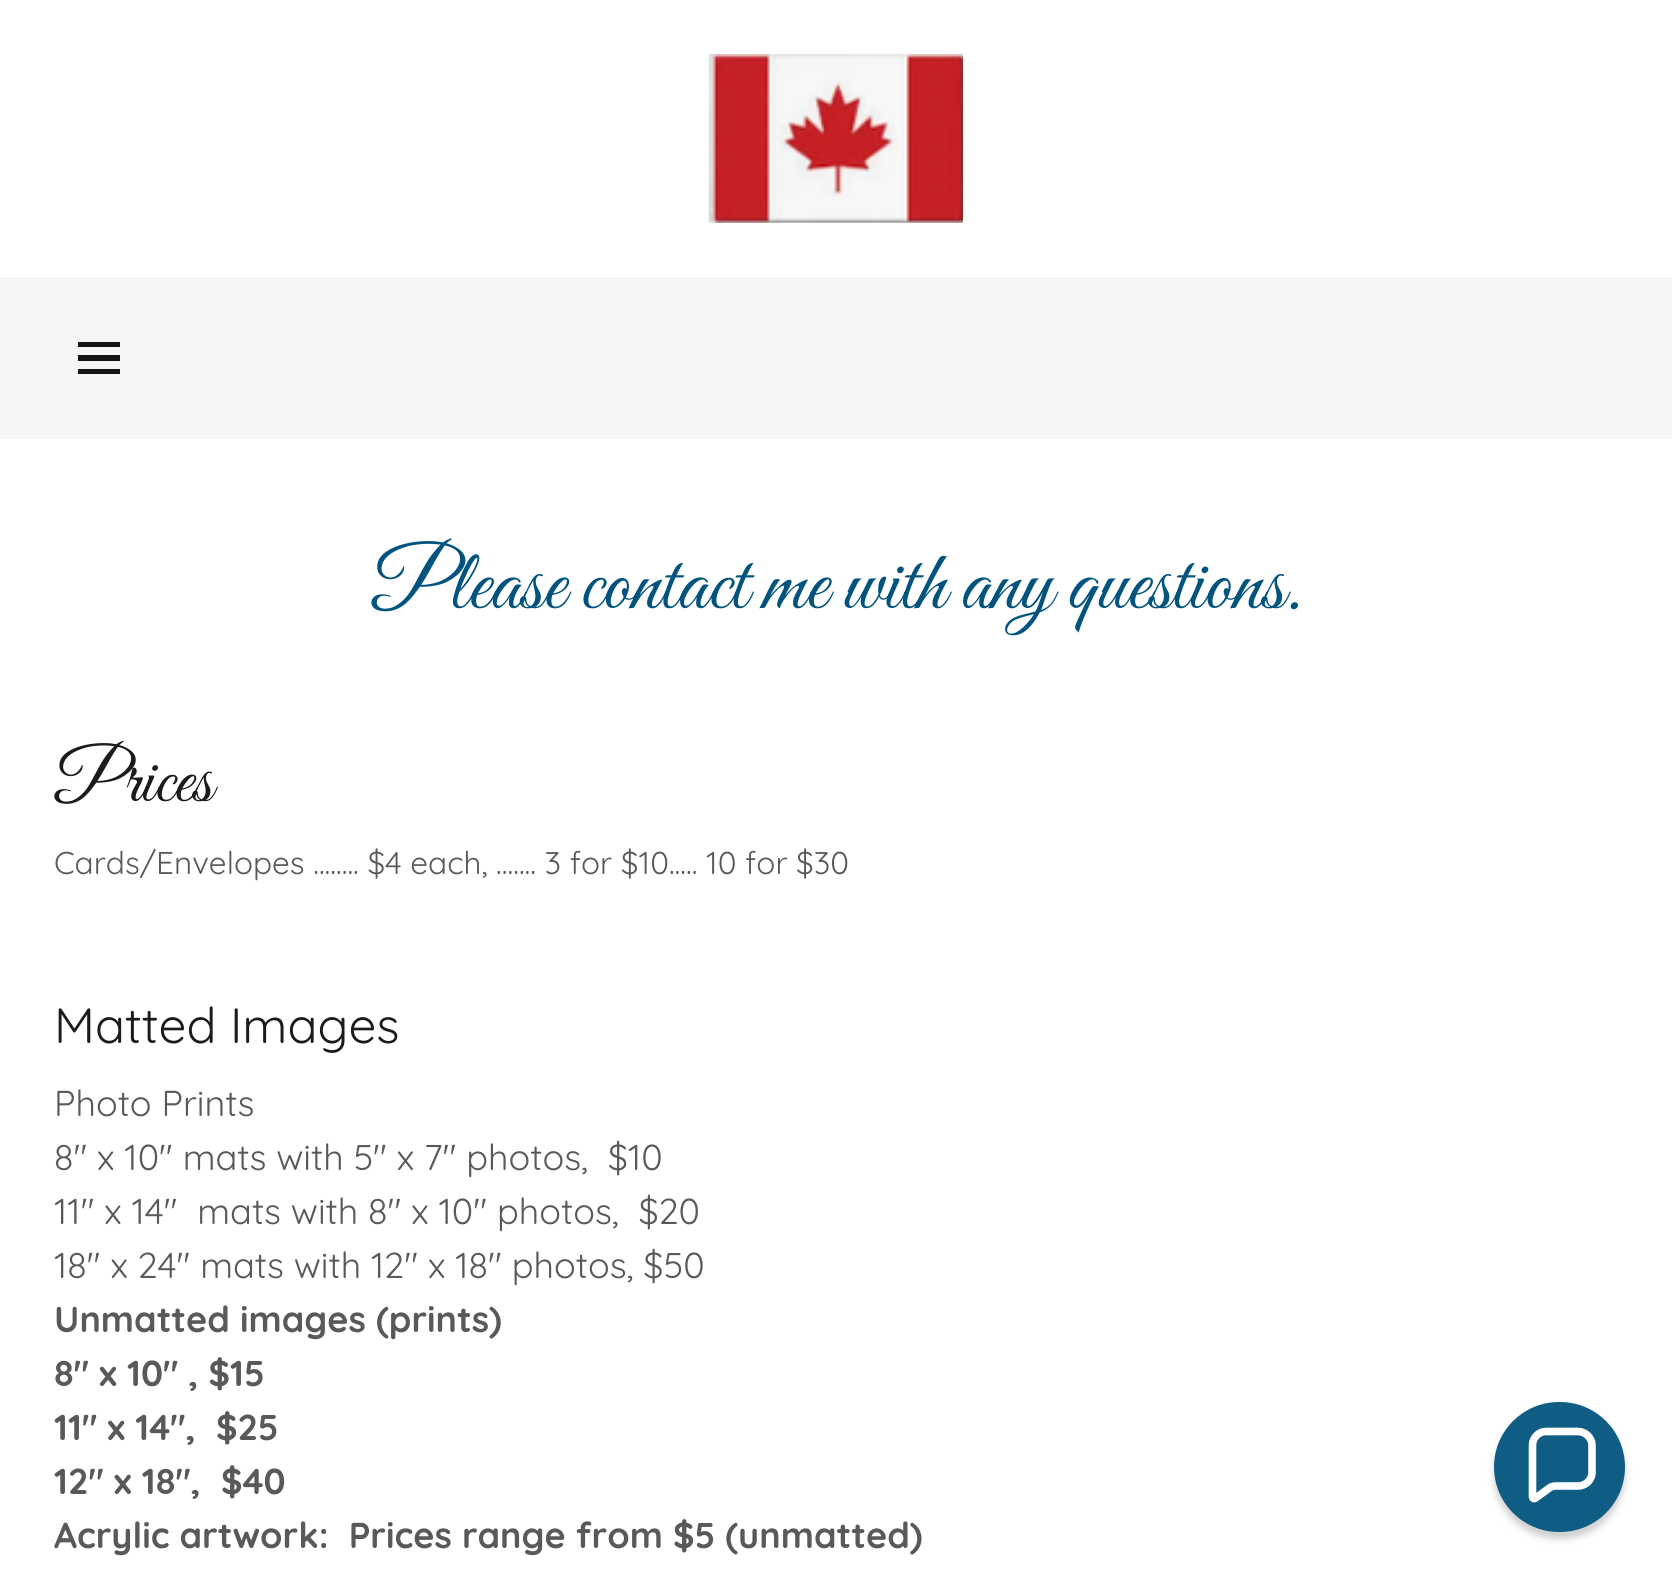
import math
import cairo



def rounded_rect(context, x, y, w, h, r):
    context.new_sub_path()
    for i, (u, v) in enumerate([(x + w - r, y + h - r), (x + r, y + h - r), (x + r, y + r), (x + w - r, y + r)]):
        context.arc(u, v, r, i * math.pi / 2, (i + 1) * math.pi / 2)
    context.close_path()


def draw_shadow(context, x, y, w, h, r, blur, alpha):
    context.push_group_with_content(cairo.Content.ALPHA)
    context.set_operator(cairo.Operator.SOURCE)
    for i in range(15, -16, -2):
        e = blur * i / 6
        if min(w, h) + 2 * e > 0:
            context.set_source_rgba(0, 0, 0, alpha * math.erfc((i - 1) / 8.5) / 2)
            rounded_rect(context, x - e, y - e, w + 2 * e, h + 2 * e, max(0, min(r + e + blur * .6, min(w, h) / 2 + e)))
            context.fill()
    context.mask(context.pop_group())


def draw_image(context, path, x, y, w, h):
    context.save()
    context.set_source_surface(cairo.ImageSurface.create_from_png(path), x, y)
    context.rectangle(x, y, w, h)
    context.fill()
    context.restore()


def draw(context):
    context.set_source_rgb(1, 1, 1)
    context.paint()
    draw_image(context, "images/1.png", 708, 54, 255, 169)
    context.set_source_rgb(246 / 255, 246 / 255, 246 / 255)
    context.rectangle(0, 277, 1672, 162)
    context.fill()
    context.set_source_rgb(21 / 255, 21 / 255, 21 / 255)
    context.rectangle(78, 342, 42, 5)
    context.fill()
    context.rectangle(78, 355, 42, 6)
    context.fill()
    context.rectangle(78, 369, 42, 5)
    context.fill()
    context.set_source_rgb(13 / 255, 13 / 255, 13 / 255)
    draw_shadow(context, 1494, 1409, 131, 130, 65, 3.5, 0.2)
    context.set_source_rgb(15 / 255, 92 / 255, 132 / 255)
    rounded_rect(context, 1494, 1402, 131, 130, 65)
    context.fill()
    context.new_path()
    context.move_to(1578, 1431.5)
    context.line_to(1546, 1431.5)
    context.curve_to(1538.5, 1431.5, 1532.5, 1438, 1532.5, 1445)
    context.line_to(1532.5, 1497)
    context.curve_to(1532.5, 1498.5, 1534, 1499, 1535, 1498.5)
    context.line_to(1550, 1487.5)
    context.curve_to(1552, 1486.5, 1554, 1486, 1556, 1486)
    context.line_to(1578, 1486)
    context.curve_to(1585.5, 1486, 1592, 1480, 1592, 1472.5)
    context.line_to(1592, 1445)
    context.curve_to(1592, 1438, 1585.5, 1431.5, 1578, 1431.5)
    context.close_path()
    context.set_source_rgb(1, 1, 1)
    context.set_line_width(7.6)
    context.stroke()
    context.select_font_face("Great Vibes")
    context.set_font_size(85.5)
    context.set_source_rgb(2 / 255, 83 / 255, 126 / 255)
    context.move_to(371, 608)
    context.show_text("Please contact me with any questions.")
    context.set_font_size(74)
    context.set_source_rgb(27 / 255, 27 / 255, 27 / 255)
    context.move_to(54, 801)
    context.show_text("Prices")
    context.select_font_face("Quicksand")
    context.set_font_size(31.5)
    context.set_source_rgb(89 / 255, 89 / 255, 89 / 255)
    context.move_to(54, 874)
    context.show_text("Cards/Envelopes ........ $4 each, ....... 3 for $10..... 10 for $30")
    context.set_font_size(49.5)
    context.set_source_rgb(27 / 255, 27 / 255, 27 / 255)
    context.move_to(54, 1043)
    context.show_text("Matted Images")
    context.set_font_size(36)
    context.set_source_rgb(89 / 255, 89 / 255, 89 / 255)
    context.move_to(54, 1116)
    context.show_text("Photo Prints")
    context.move_to(54, 1170)
    context.show_text("8\" x 10\" mats with 5'' x 7'' photos,  $10")
    context.move_to(54, 1224)
    context.show_text("11\" x 14\"  mats with 8'' x 10'' photos,  $20")
    context.move_to(54, 1278)
    context.show_text("18\" x 24\" mats with 12'' x 18'' photos, $50")
    context.select_font_face("Quicksand", cairo.FontSlant.NORMAL, cairo.FontWeight.BOLD)
    context.move_to(54, 1332)
    context.show_text("Unmatted images (prints)")
    context.move_to(54, 1386)
    context.show_text("8\" x 10\" , $15")
    context.move_to(54, 1440)
    context.show_text("11\" x 14\",  $25")
    context.move_to(54, 1494)
    context.show_text("12\" x 18\",  $40")
    context.move_to(54, 1548)
    context.show_text("Acrylic artwork:  Prices range from $5 (unmatted)")


surface = cairo.ImageSurface(cairo.Format.RGB24, 1672, 1580)
context = cairo.Context(surface)
options = cairo.FontOptions()
options.set_hint_metrics(cairo.HintMetrics.OFF)
options.set_hint_style(cairo.HintStyle.NONE)
context.set_font_options(options)
context.set_miter_limit(4)
draw(context)
surface.write_to_png("out.png")
